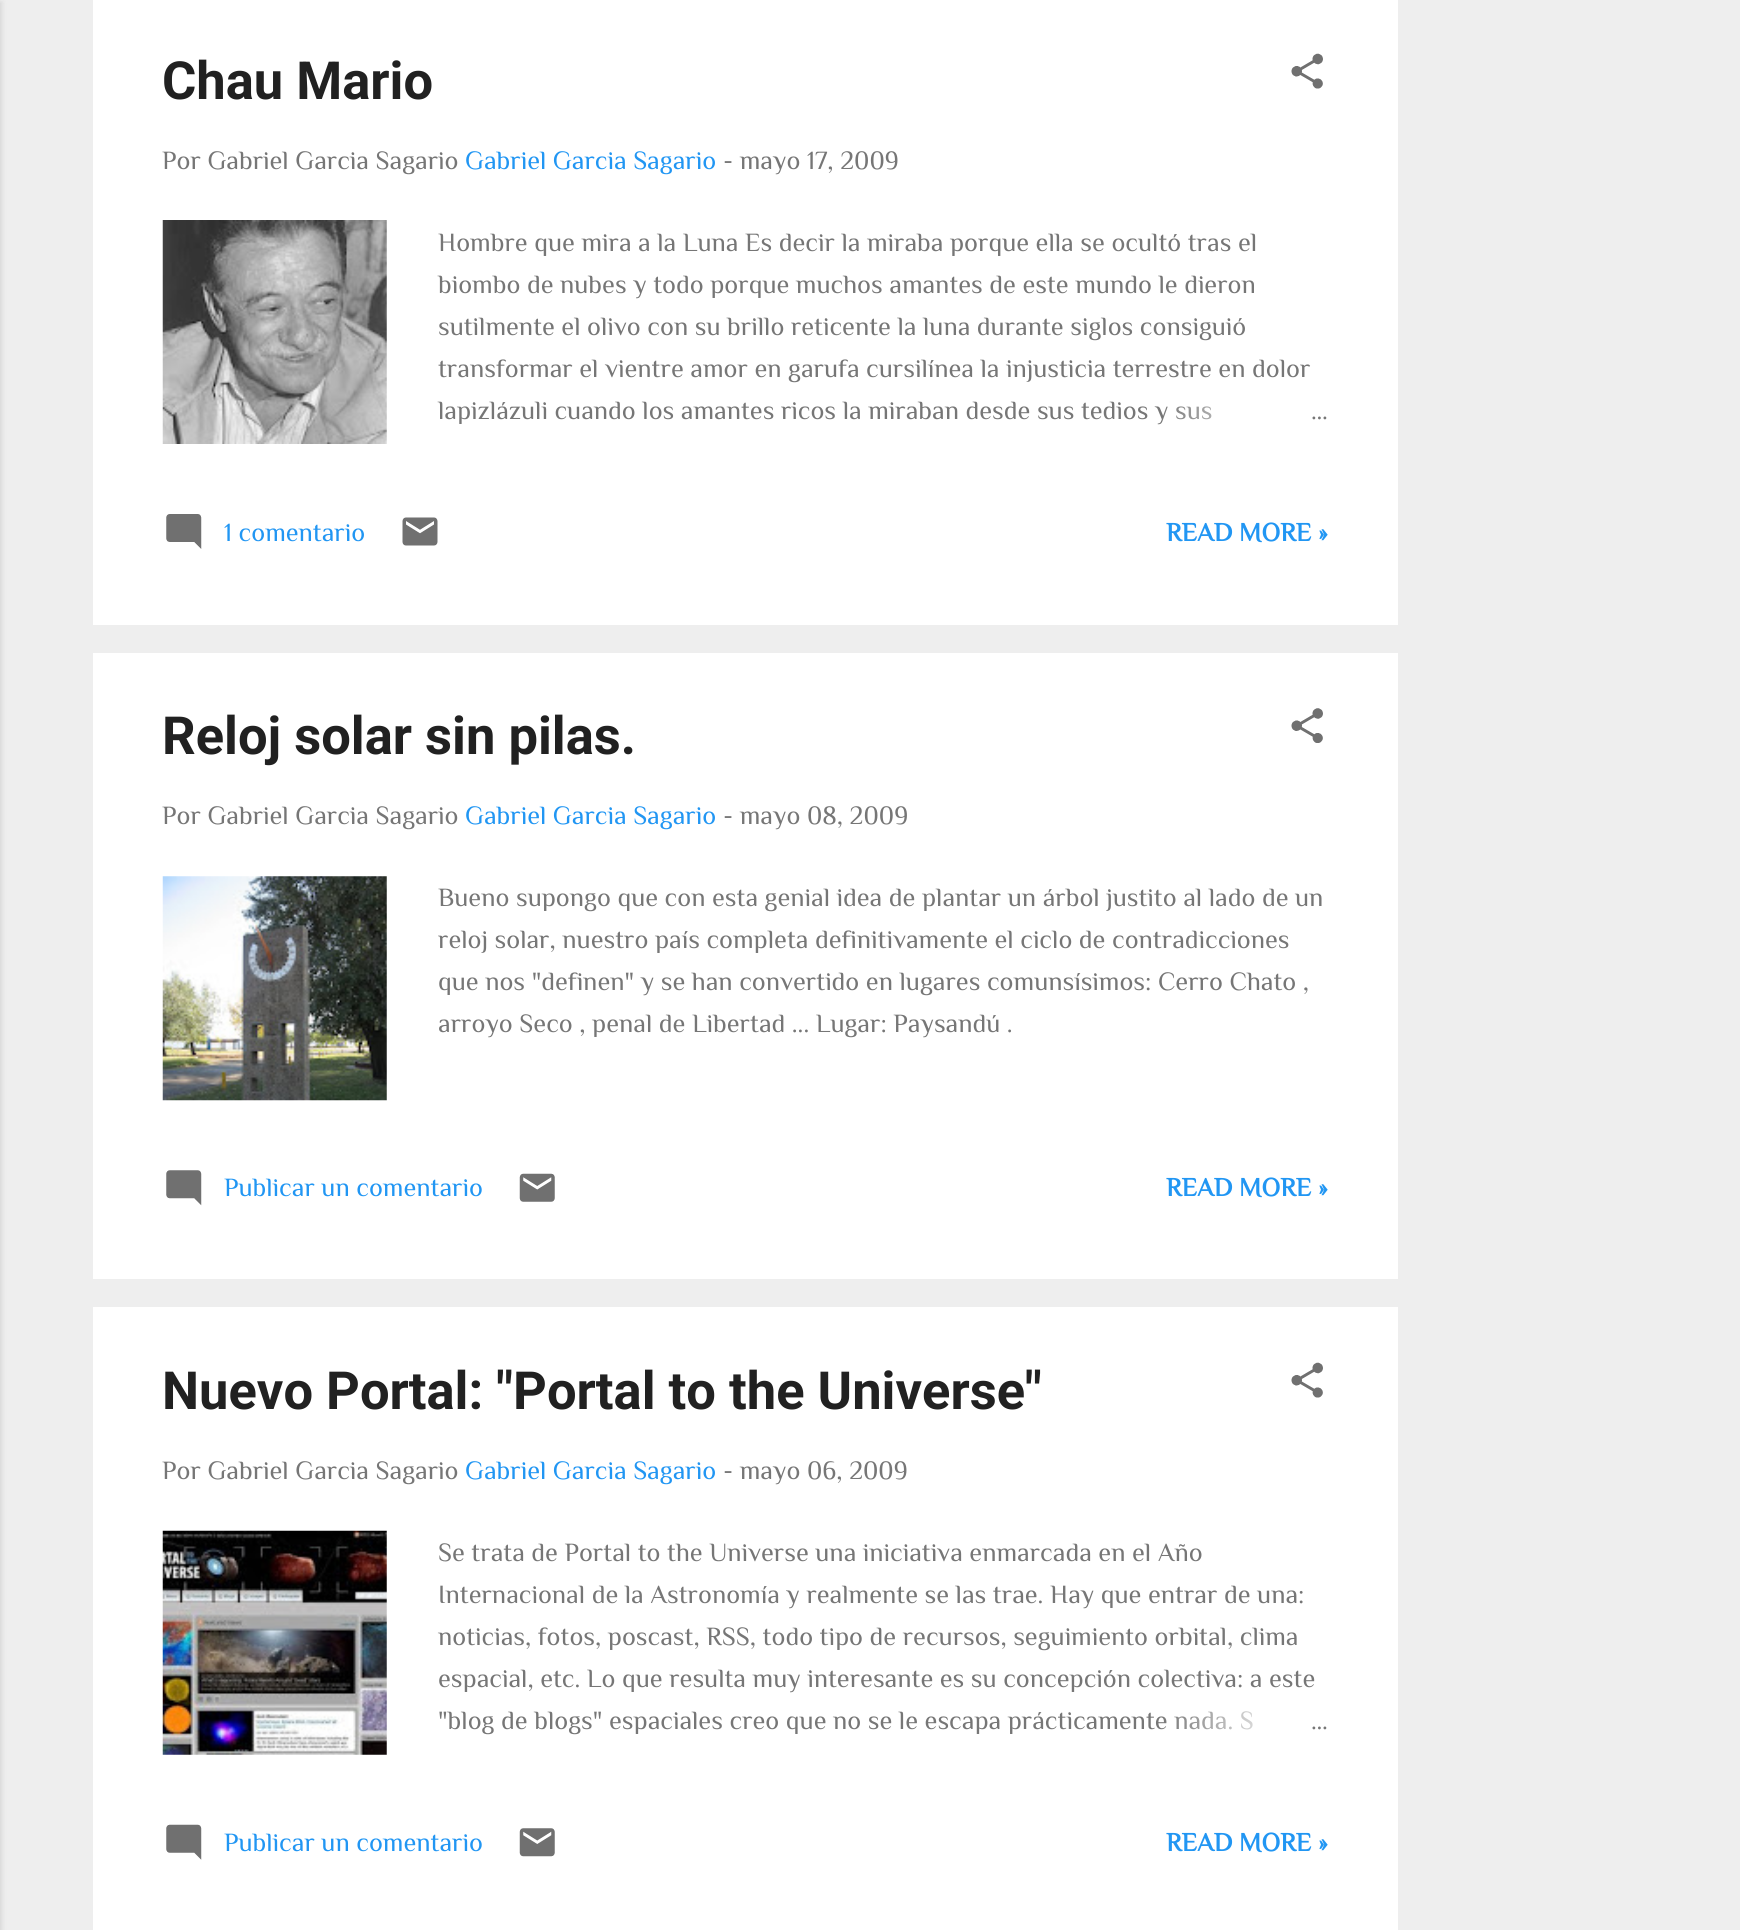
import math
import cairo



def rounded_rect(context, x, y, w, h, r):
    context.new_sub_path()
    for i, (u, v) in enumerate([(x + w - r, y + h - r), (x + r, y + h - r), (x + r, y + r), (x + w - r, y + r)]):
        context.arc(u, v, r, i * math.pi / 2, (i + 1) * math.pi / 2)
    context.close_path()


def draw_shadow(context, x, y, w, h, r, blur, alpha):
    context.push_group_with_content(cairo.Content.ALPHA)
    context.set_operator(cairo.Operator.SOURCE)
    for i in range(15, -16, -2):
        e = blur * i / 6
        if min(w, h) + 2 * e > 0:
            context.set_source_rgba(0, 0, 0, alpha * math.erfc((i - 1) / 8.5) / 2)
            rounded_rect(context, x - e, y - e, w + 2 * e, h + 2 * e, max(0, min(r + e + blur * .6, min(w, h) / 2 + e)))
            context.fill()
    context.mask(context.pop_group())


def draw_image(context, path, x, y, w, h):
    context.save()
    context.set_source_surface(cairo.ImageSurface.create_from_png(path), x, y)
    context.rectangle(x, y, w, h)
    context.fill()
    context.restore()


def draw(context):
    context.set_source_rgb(238 / 255, 238 / 255, 238 / 255)
    context.paint()
    context.set_source_rgb(0, 0, 0)
    draw_shadow(context, -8, 2, 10, 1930, 0, 2.5, 0.1)
    context.set_source_rgb(1, 1, 1)
    context.rectangle(93, 0, 1305, 625)
    context.fill()
    draw_image(context, "images/1.png", 1291, 53, 32, 36)
    draw_image(context, "images/2.png", 162, 220, 225, 224)
    draw_image(context, "images/3.png", 166, 514, 36, 35)
    draw_image(context, "images/4.png", 402, 517, 36, 29)
    context.rectangle(93, 653, 1305, 626)
    context.fill()
    draw_image(context, "images/5.png", 1291, 708, 32, 35)
    draw_image(context, "images/6.png", 162, 876, 225, 225)
    draw_image(context, "images/7.png", 166, 1170, 36, 36)
    draw_image(context, "images/8.png", 519, 1173, 36, 29)
    context.rectangle(93, 1307, 1305, 623)
    context.fill()
    draw_image(context, "images/1.png", 1291, 1362, 32, 36)
    draw_image(context, "images/9.png", 162, 1530, 225, 225)
    draw_image(context, "images/10.png", 166, 1824, 36, 36)
    draw_image(context, "images/11.png", 519, 1828, 36, 29)
    context.select_font_face("Roboto", cairo.FontSlant.NORMAL, cairo.FontWeight.BOLD)
    context.set_font_size(52.5)
    context.set_source_rgb(33 / 255, 33 / 255, 33 / 255)
    context.move_to(162, 99)
    context.show_text("Chau Mario")
    context.select_font_face("Philosopher")
    context.set_font_size(26.25)
    context.set_source_rgb(118 / 255, 118 / 255, 118 / 255)
    context.move_to(162, 169)
    context.show_text("Por Gabriel Garcia Sagario")
    context.set_source_rgb(33 / 255, 150 / 255, 243 / 255)
    context.move_to(465, 169)
    context.show_text("Gabriel Garcia Sagario")
    context.set_source_rgb(118 / 255, 118 / 255, 118 / 255)
    context.move_to(723, 169)
    context.show_text("- mayo 17, 2009")
    context.move_to(438, 251)
    context.show_text("Hombre que mira a la Luna Es decir la miraba porque ella se ocultó tras el")
    context.move_to(438, 293)
    context.show_text("biombo de nubes y todo porque muchos amantes de este mundo le dieron")
    context.move_to(438, 335)
    context.show_text("sutilmente el olivo con su brillo reticente la luna durante siglos consiguió")
    context.move_to(438, 377)
    context.show_text("transformar el vientre amor en garufa cursilínea la injusticia terrestre en dolor")
    context.move_to(438, 419)
    context.show_text("lapizlázuli cuando los amantes ricos la miraban desde sus tedios y sus")
    gradient = cairo.LinearGradient(1328, 410, 1160, 410)
    gradient.add_color_stop_rgba(0, 1, 1, 1, 1)
    gradient.add_color_stop_rgba(0.2, 1, 1, 1, 1)
    gradient.add_color_stop_rgba(1, 1, 1, 1, 0)
    context.set_source(gradient)
    context.rectangle(1163, 406, 49, 14)
    context.fill()
    context.set_source_rgb(118 / 255, 118 / 255, 118 / 255)
    context.move_to(1311, 419)
    context.show_text("…")
    context.set_source_rgb(33 / 255, 150 / 255, 243 / 255)
    context.move_to(224, 541)
    context.show_text("1 comentario")
    context.select_font_face("Philosopher", cairo.FontSlant.NORMAL, cairo.FontWeight.BOLD)
    context.move_to(1166, 541)
    context.show_text("READ MORE »")
    context.select_font_face("Roboto", cairo.FontSlant.NORMAL, cairo.FontWeight.BOLD)
    context.set_font_size(52.5)
    context.set_source_rgb(33 / 255, 33 / 255, 33 / 255)
    context.move_to(162, 754)
    context.show_text("Reloj solar sin pilas.")
    context.select_font_face("Philosopher")
    context.set_font_size(26.25)
    context.set_source_rgb(118 / 255, 118 / 255, 118 / 255)
    context.move_to(162, 824)
    context.show_text("Por Gabriel Garcia Sagario")
    context.set_source_rgb(33 / 255, 150 / 255, 243 / 255)
    context.move_to(465, 824)
    context.show_text("Gabriel Garcia Sagario")
    context.set_source_rgb(118 / 255, 118 / 255, 118 / 255)
    context.move_to(723, 824)
    context.show_text("- mayo 08, 2009")
    context.move_to(438, 906)
    context.show_text("Bueno supongo que con esta genial idea de plantar un árbol justito al lado de un")
    context.move_to(438, 948)
    context.show_text("reloj solar, nuestro país completa definitivamente el ciclo de contradicciones")
    context.move_to(438, 990)
    context.show_text("que nos \"definen\" y se han convertido en lugares comunsísimos: Cerro Chato ,")
    context.move_to(438, 1032)
    context.show_text("arroyo Seco , penal de Libertad ... Lugar: Paysandú .")
    context.set_source_rgb(33 / 255, 150 / 255, 243 / 255)
    context.move_to(224, 1196)
    context.show_text("Publicar un comentario")
    context.select_font_face("Philosopher", cairo.FontSlant.NORMAL, cairo.FontWeight.BOLD)
    context.move_to(1166, 1196)
    context.show_text("READ MORE »")
    context.select_font_face("Roboto", cairo.FontSlant.NORMAL, cairo.FontWeight.BOLD)
    context.set_font_size(52.5)
    context.set_source_rgb(33 / 255, 33 / 255, 33 / 255)
    context.move_to(162, 1409)
    context.show_text("Nuevo Portal: \"Portal to the Universe\"")
    context.select_font_face("Philosopher")
    context.set_font_size(26.25)
    context.set_source_rgb(118 / 255, 118 / 255, 118 / 255)
    context.move_to(162, 1479)
    context.show_text("Por Gabriel Garcia Sagario")
    context.set_source_rgb(33 / 255, 150 / 255, 243 / 255)
    context.move_to(465, 1479)
    context.show_text("Gabriel Garcia Sagario")
    context.set_source_rgb(118 / 255, 118 / 255, 118 / 255)
    context.move_to(723, 1479)
    context.show_text("- mayo 06, 2009")
    context.move_to(438, 1561)
    context.show_text("Se trata de Portal to the Universe una iniciativa enmarcada en el Año")
    context.move_to(438, 1603)
    context.show_text("Internacional de la Astronomía y realmente se las trae. Hay que entrar de una:")
    context.move_to(438, 1645)
    context.show_text("noticias, fotos, poscast, RSS, todo tipo de recursos, seguimiento orbital, clima")
    context.move_to(438, 1687)
    context.show_text("espacial, etc. Lo que resulta muy interesante es su concepción colectiva: a este")
    context.move_to(438, 1729)
    context.show_text("\"blog de blogs\" espaciales creo que no se le escapa prácticamente nada. S")
    gradient = cairo.LinearGradient(1328, 1720, 1160, 1720)
    gradient.add_color_stop_rgba(0, 1, 1, 1, 1)
    gradient.add_color_stop_rgba(0.2, 1, 1, 1, 1)
    gradient.add_color_stop_rgba(1, 1, 1, 1, 0)
    context.set_source(gradient)
    context.rectangle(1163, 1711, 90, 19)
    context.fill()
    context.set_source_rgb(118 / 255, 118 / 255, 118 / 255)
    context.move_to(1311, 1729)
    context.show_text("…")
    context.set_source_rgb(33 / 255, 150 / 255, 243 / 255)
    context.move_to(224, 1851)
    context.show_text("Publicar un comentario")
    context.select_font_face("Philosopher", cairo.FontSlant.NORMAL, cairo.FontWeight.BOLD)
    context.move_to(1166, 1851)
    context.show_text("READ MORE »")


surface = cairo.ImageSurface(cairo.Format.RGB24, 1740, 1930)
context = cairo.Context(surface)
options = cairo.FontOptions()
options.set_hint_metrics(cairo.HintMetrics.OFF)
options.set_hint_style(cairo.HintStyle.NONE)
context.set_font_options(options)
context.set_miter_limit(4)
draw(context)
surface.write_to_png("out.png")
